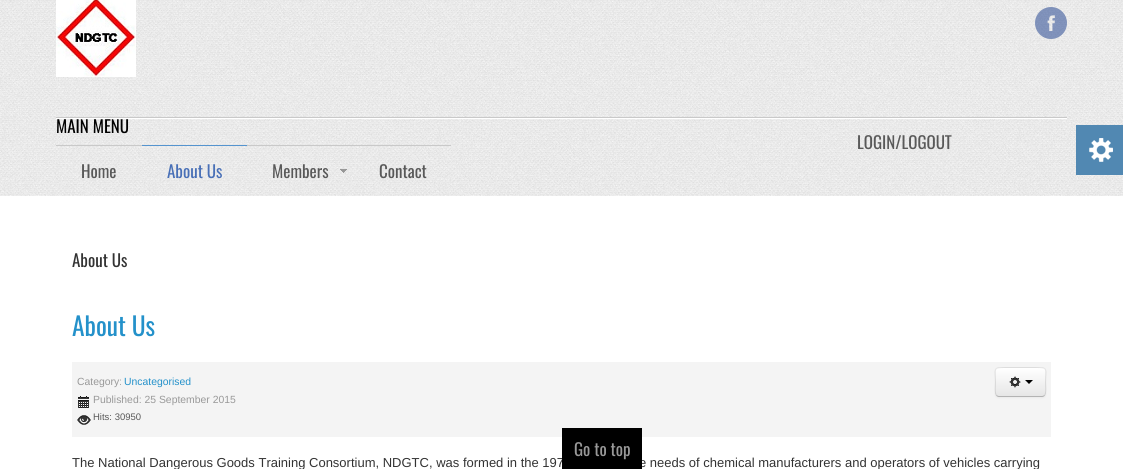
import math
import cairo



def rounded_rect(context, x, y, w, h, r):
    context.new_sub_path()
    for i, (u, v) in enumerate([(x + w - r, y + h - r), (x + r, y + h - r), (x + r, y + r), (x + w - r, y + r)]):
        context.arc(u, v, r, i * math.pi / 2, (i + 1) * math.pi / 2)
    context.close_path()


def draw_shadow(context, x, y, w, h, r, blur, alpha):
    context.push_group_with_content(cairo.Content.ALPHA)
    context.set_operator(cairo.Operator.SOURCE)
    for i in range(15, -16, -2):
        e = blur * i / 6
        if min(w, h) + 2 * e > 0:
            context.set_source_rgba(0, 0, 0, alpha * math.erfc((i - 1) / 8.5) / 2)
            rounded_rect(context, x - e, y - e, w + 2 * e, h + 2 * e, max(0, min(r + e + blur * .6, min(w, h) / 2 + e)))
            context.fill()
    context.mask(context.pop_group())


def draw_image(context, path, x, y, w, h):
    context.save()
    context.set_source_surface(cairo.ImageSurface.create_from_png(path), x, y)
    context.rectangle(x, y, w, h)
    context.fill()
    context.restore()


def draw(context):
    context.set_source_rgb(1, 1, 1)
    context.paint()
    draw_image(context, "images/1.png", 0, 0, 1123, 117)
    draw_image(context, "images/2.png", 56, 0, 80, 77)
    draw_image(context, "images/3.png", 1035, 7, 32, 32)
    draw_image(context, "images/4.png", 0, 117, 1123, 79)
    draw_image(context, "images/5.png", 56, 117, 1011, 2)
    context.set_source_rgb(201 / 255, 201 / 255, 201 / 255)
    context.rectangle(56, 145, 86, 1)
    context.fill()
    context.set_source_rgb(85 / 255, 148 / 255, 207 / 255)
    context.rectangle(142, 145, 105, 1)
    context.fill()
    draw_image(context, "images/6.png", 340, 169, 7, 4)
    context.set_source_rgb(201 / 255, 201 / 255, 201 / 255)
    context.rectangle(247, 145, 204, 1)
    context.fill()
    context.set_source_rgb(81 / 255, 136 / 255, 178 / 255)
    context.rectangle(1076, 125, 47, 50)
    context.fill()
    draw_image(context, "images/7.png", 1089, 138, 24, 24)
    context.set_source_rgb(244 / 255, 244 / 255, 244 / 255)
    context.rectangle(72, 362, 979, 75)
    context.fill()
    draw_image(context, "images/8.png", 78, 396, 11, 12)
    draw_image(context, "images/9.png", 77, 415, 14, 10)
    context.set_source_rgb(0, 0, 0)
    draw_shadow(context, 995, 368, 51, 30, 4, 1, 0.05)
    context.set_source_rgb(245 / 255, 245 / 255, 245 / 255)
    rounded_rect(context, 995, 367, 51, 30, 4)
    context.fill()
    context.save()
    rounded_rect(context, 995, 367, 51, 30, 4)
    context.clip()
    gradient = cairo.LinearGradient(1021, 368, 1021, 396)
    gradient.add_color_stop_rgba(0, 1, 1, 1, 1)
    gradient.add_color_stop_rgba(1, 230 / 255, 230 / 255, 230 / 255, 1)
    context.set_source(gradient)
    context.rectangle(995, 368, 51, 28)
    context.fill()
    context.restore()
    context.set_source_rgb(1, 1, 1)
    context.new_path()
    context.move_to(999, 369)
    context.line_to(1042, 369)
    context.curve_to(1044, 369, 1045, 370, 1045, 372)
    context.curve_to(1045, 366, 1039, 368, 1035, 368)
    context.line_to(1006, 368)
    context.curve_to(1002, 368, 996, 366, 996, 372)
    context.curve_to(996, 370, 997, 369, 999, 369)
    context.close_path()
    context.fill()
    context.new_path()
    context.move_to(1044.5, 395.5)
    context.curve_to(1044, 396, 1043, 396.5, 1042, 396.5)
    context.line_to(999, 396.5)
    context.curve_to(998, 396.5, 997, 396, 996.5, 395.5)
    context.set_source_rgb(179 / 255, 179 / 255, 179 / 255)
    context.set_line_width(1)
    context.stroke()
    context.new_path()
    context.move_to(996.5, 395.5)
    context.curve_to(994.5, 393.5, 995.5, 385, 995.5, 382)
    context.curve_to(995.5, 368, 992.5, 367.5, 1006, 367.5)
    context.line_to(1035, 367.5)
    context.curve_to(1048.5, 367.5, 1045.5, 368, 1045.5, 382)
    context.curve_to(1045.5, 385, 1046.5, 393.5, 1044.5, 395.5)
    context.set_source_rgba(0, 0, 0, 0.1)
    context.stroke()
    draw_image(context, "images/10.png", 1009, 376, 12, 12)
    context.set_source_rgb(0, 0, 0)
    context.new_path()
    context.move_to(1025, 380)
    context.line_to(1033, 380)
    context.line_to(1029, 384)
    context.close_path()
    context.fill()
    context.select_font_face("Oswald")
    context.set_font_size(17)
    context.move_to(56, 133)
    context.show_text("MAIN MENU")
    context.set_source_rgb(89 / 255, 89 / 255, 89 / 255)
    context.move_to(81, 178)
    context.show_text("Home")
    context.set_source_rgb(73 / 255, 112 / 255, 183 / 255)
    context.move_to(167, 178)
    context.show_text("About Us")
    context.set_source_rgb(89 / 255, 89 / 255, 89 / 255)
    context.move_to(272, 178)
    context.show_text("Members")
    context.move_to(379, 178)
    context.show_text("Contact")
    context.move_to(857, 149)
    context.show_text("LOGIN/LOGOUT")
    context.set_source_rgb(51 / 255, 51 / 255, 51 / 255)
    context.move_to(72, 267)
    context.show_text("About Us")
    context.set_font_size(25.5)
    context.set_source_rgb(36 / 255, 145 / 255, 202 / 255)
    context.move_to(72, 336)
    context.show_text("About Us")
    context.select_font_face("Liberation Sans")
    context.set_font_size(10.4)
    context.set_source_rgb(153 / 255, 153 / 255, 153 / 255)
    context.move_to(77, 385)
    context.show_text("Category:")
    context.set_source_rgb(36 / 255, 145 / 255, 202 / 255)
    context.move_to(124, 385)
    context.show_text("Uncategorised")
    context.set_source_rgb(153 / 255, 153 / 255, 153 / 255)
    context.move_to(93, 403)
    context.show_text("Published: 25 September 2015")
    context.set_font_size(9.5)
    context.set_source_rgb(89 / 255, 89 / 255, 89 / 255)
    context.move_to(93, 420)
    context.show_text("Hits: 30950")
    context.set_font_size(13)
    context.set_source_rgb(51 / 255, 51 / 255, 51 / 255)
    context.move_to(72, 467)
    context.show_text("The National Dangerous Goods Training Consortium, NDGTC, was formed in the 197")
    context.move_to(639, 467)
    context.show_text("e needs of chemical manufacturers and operators of vehicles carrying")
    context.set_source_rgb(0, 0, 0)
    context.rectangle(562, 428, 80, 41)
    context.fill()
    context.select_font_face("Oswald")
    context.set_font_size(17)
    context.set_source_rgb(153 / 255, 153 / 255, 153 / 255)
    context.move_to(574, 456)
    context.show_text("Go to top")


surface = cairo.ImageSurface(cairo.Format.RGB24, 1123, 469)
context = cairo.Context(surface)
options = cairo.FontOptions()
options.set_hint_metrics(cairo.HintMetrics.OFF)
options.set_hint_style(cairo.HintStyle.NONE)
context.set_font_options(options)
context.set_miter_limit(4)
draw(context)
surface.write_to_png("out.png")
